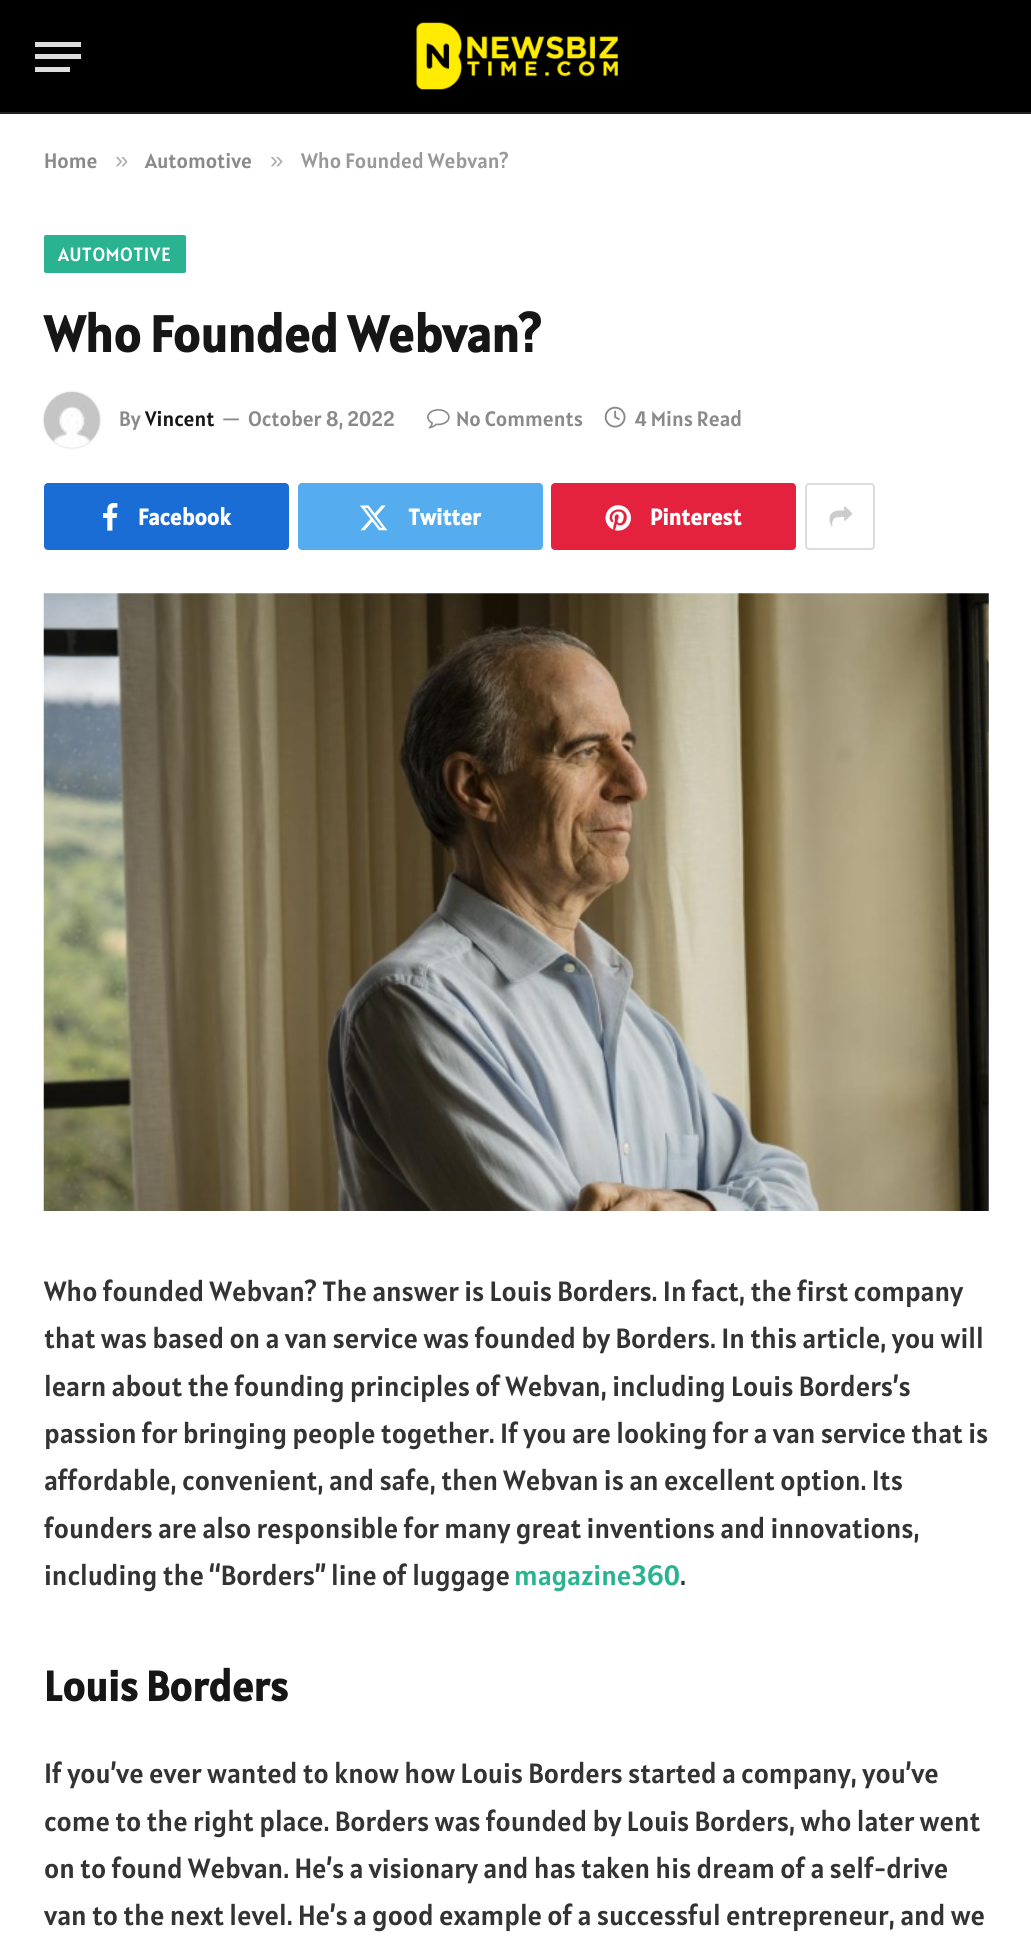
import math
import cairo



def draw_spaced(context, x, y, s, letter, word):
    context.move_to(x, y)
    for ch in s:
        context.show_text(ch)
        context.rel_move_to(letter + word * (ch == ' '), 0)


def rounded_rect(context, x, y, w, h, r):
    context.new_sub_path()
    for i, (u, v) in enumerate([(x + w - r, y + h - r), (x + r, y + h - r), (x + r, y + r), (x + w - r, y + r)]):
        context.arc(u, v, r, i * math.pi / 2, (i + 1) * math.pi / 2)
    context.close_path()


def draw_shadow(context, x, y, w, h, r, blur, alpha):
    context.push_group_with_content(cairo.Content.ALPHA)
    context.set_operator(cairo.Operator.SOURCE)
    for i in range(15, -16, -2):
        e = blur * i / 6
        if min(w, h) + 2 * e > 0:
            context.set_source_rgba(0, 0, 0, alpha * math.erfc((i - 1) / 8.5) / 2)
            rounded_rect(context, x - e, y - e, w + 2 * e, h + 2 * e, max(0, min(r + e + blur * .6, min(w, h) / 2 + e)))
            context.fill()
    context.mask(context.pop_group())


def draw_image(context, path, x, y, w, h):
    context.save()
    context.set_source_surface(cairo.ImageSurface.create_from_png(path), x, y)
    context.rectangle(x, y, w, h)
    context.fill()
    context.restore()


def draw(context):
    context.set_source_rgb(1, 1, 1)
    context.paint()
    context.set_source_rgb(0, 0, 0)
    context.rectangle(0, 0, 1031, 112)
    context.fill()
    context.set_source_rgb(34 / 255, 34 / 255, 34 / 255)
    context.rectangle(0, 112, 1031, 2)
    context.fill()
    context.set_source_rgb(221 / 255, 221 / 255, 221 / 255)
    context.rectangle(35, 67, 35, 5)
    context.fill()
    context.rectangle(35, 42, 46, 5)
    context.fill()
    context.rectangle(35, 54, 46, 5)
    context.fill()
    draw_image(context, "images/1.png", 416, 22, 202, 68)
    context.set_source_rgb(42 / 255, 179 / 255, 145 / 255)
    rounded_rect(context, 44, 235, 142, 38, 2)
    context.fill()
    context.set_source_rgb(0, 0, 0)
    draw_shadow(context, 44, 392, 56, 56, 28, 1, 0.2)
    draw_image(context, "images/2.png", 44, 392, 56, 56)
    draw_image(context, "images/3.png", 427, 409, 23, 20)
    draw_image(context, "images/4.png", 604, 406, 22, 22)
    context.set_source_rgb(26 / 255, 109 / 255, 212 / 255)
    rounded_rect(context, 44, 483, 245, 67, 4)
    context.fill()
    draw_image(context, "images/5.png", 103, 503, 15, 28)
    context.set_source_rgb(85 / 255, 172 / 255, 239 / 255)
    rounded_rect(context, 298, 483, 245, 67, 4)
    context.fill()
    draw_image(context, "images/6.png", 360, 505, 28, 26)
    context.set_source_rgb(228 / 255, 34 / 255, 62 / 255)
    rounded_rect(context, 551, 483, 245, 67, 4)
    context.fill()
    draw_image(context, "images/7.png", 605, 505, 26, 26)
    rounded_rect(context, 806, 484, 68, 65, 3)
    context.set_source_rgb(221 / 255, 221 / 255, 221 / 255)
    context.stroke()
    draw_image(context, "images/8.png", 829, 506, 24, 21)
    draw_image(context, "images/9.png", 43, 593, 946, 618)
    context.select_font_face("Alatsi")
    context.set_font_size(21)
    context.set_source_rgb(138 / 255, 138 / 255, 138 / 255)
    context.move_to(44, 168)
    context.show_text("Home")
    context.select_font_face("Liberation Sans")
    context.set_font_size(24)
    context.set_source_rgb(173 / 255, 173 / 255, 173 / 255)
    context.move_to(115, 168)
    context.show_text("»")
    context.select_font_face("Alatsi")
    context.set_font_size(21)
    context.set_source_rgb(138 / 255, 138 / 255, 138 / 255)
    context.move_to(145, 168)
    context.show_text("Automotive")
    context.select_font_face("Liberation Sans")
    context.set_font_size(24)
    context.set_source_rgb(173 / 255, 173 / 255, 173 / 255)
    context.move_to(270, 168)
    context.show_text("»")
    context.select_font_face("Alatsi")
    context.set_font_size(21)
    context.set_source_rgb(153 / 255, 153 / 255, 153 / 255)
    context.move_to(301, 168)
    context.show_text("Who Founded Webvan?")
    context.set_font_size(19.25)
    context.set_source_rgb(1, 1, 1)
    draw_spaced(context, 58, 261, "AUTOMOTIVE", 0.5, 0)
    context.select_font_face("Alatsi", cairo.FontSlant.NORMAL, cairo.FontWeight.BOLD)
    context.set_font_size(50.75)
    context.set_source_rgb(22 / 255, 22 / 255, 22 / 255)
    draw_spaced(context, 44, 352, "Who Founded Webvan?", -0.25, 0)
    context.select_font_face("Alatsi")
    context.set_font_size(21)
    context.set_source_rgb(138 / 255, 138 / 255, 138 / 255)
    context.move_to(119, 426)
    context.show_text("By")
    context.set_source_rgb(22 / 255, 22 / 255, 22 / 255)
    context.move_to(145, 426)
    context.show_text("Vincent")
    context.set_font_size(19)
    context.set_source_rgb(138 / 255, 138 / 255, 138 / 255)
    context.move_to(222, 425)
    context.show_text("—")
    context.set_font_size(21)
    context.move_to(248, 426)
    context.show_text("October 8, 2022")
    context.move_to(456, 426)
    context.show_text("No Comments")
    context.move_to(634, 426)
    context.show_text("4 Mins Read")
    context.select_font_face("Alatsi", cairo.FontSlant.NORMAL, cairo.FontWeight.BOLD)
    context.set_font_size(22.75)
    context.set_source_rgb(1, 1, 1)
    context.move_to(138, 525)
    context.show_text("Facebook")
    context.move_to(408, 525)
    context.show_text("Twitter")
    context.move_to(650, 525)
    context.show_text("Pinterest")
    context.select_font_face("Alatsi")
    context.set_font_size(27.9)
    context.set_source_rgb(51 / 255, 51 / 255, 51 / 255)
    context.move_to(44, 1301)
    context.show_text("Who founded Webvan? The answer is Louis Borders. In fact, the first company")
    context.move_to(44, 1348)
    context.show_text("that was based on a van service was founded by Borders. In this article, you will")
    context.move_to(44, 1396)
    context.show_text("learn about the founding principles of Webvan, including Louis Borders’s")
    context.move_to(44, 1443)
    context.show_text("passion for bringing people together. If you are looking for a van service that is")
    context.move_to(44, 1490)
    context.show_text("affordable, convenient, and safe, then Webvan is an excellent option. Its")
    context.move_to(44, 1538)
    context.show_text("founders are also responsible for many great inventions and innovations,")
    context.move_to(44, 1585)
    context.show_text("including the “Borders” line of luggage")
    context.set_source_rgb(42 / 255, 179 / 255, 145 / 255)
    context.move_to(514, 1585)
    context.show_text("magazine360")
    context.set_source_rgb(51 / 255, 51 / 255, 51 / 255)
    context.move_to(680, 1585)
    context.show_text(".")
    context.select_font_face("Alatsi", cairo.FontSlant.NORMAL, cairo.FontWeight.BOLD)
    context.set_font_size(42)
    context.set_source_rgb(22 / 255, 22 / 255, 22 / 255)
    context.move_to(44, 1701)
    context.show_text("Louis Borders")
    context.select_font_face("Alatsi")
    context.set_font_size(27.9)
    context.set_source_rgb(51 / 255, 51 / 255, 51 / 255)
    context.move_to(44, 1783)
    context.show_text("If you’ve ever wanted to know how Louis Borders started a company, you’ve")
    context.move_to(44, 1831)
    context.show_text("come to the right place. Borders was founded by Louis Borders, who later went")
    context.move_to(44, 1878)
    context.show_text("on to found Webvan. He’s a visionary and has taken his dream of a self-drive")
    context.move_to(44, 1925)
    context.show_text("van to the next level. He’s a good example of a successful entrepreneur, and we")


surface = cairo.ImageSurface(cairo.Format.RGB24, 1031, 1943)
context = cairo.Context(surface)
options = cairo.FontOptions()
options.set_hint_metrics(cairo.HintMetrics.OFF)
options.set_hint_style(cairo.HintStyle.NONE)
context.set_font_options(options)
context.set_miter_limit(4)
draw(context)
surface.write_to_png("out.png")
